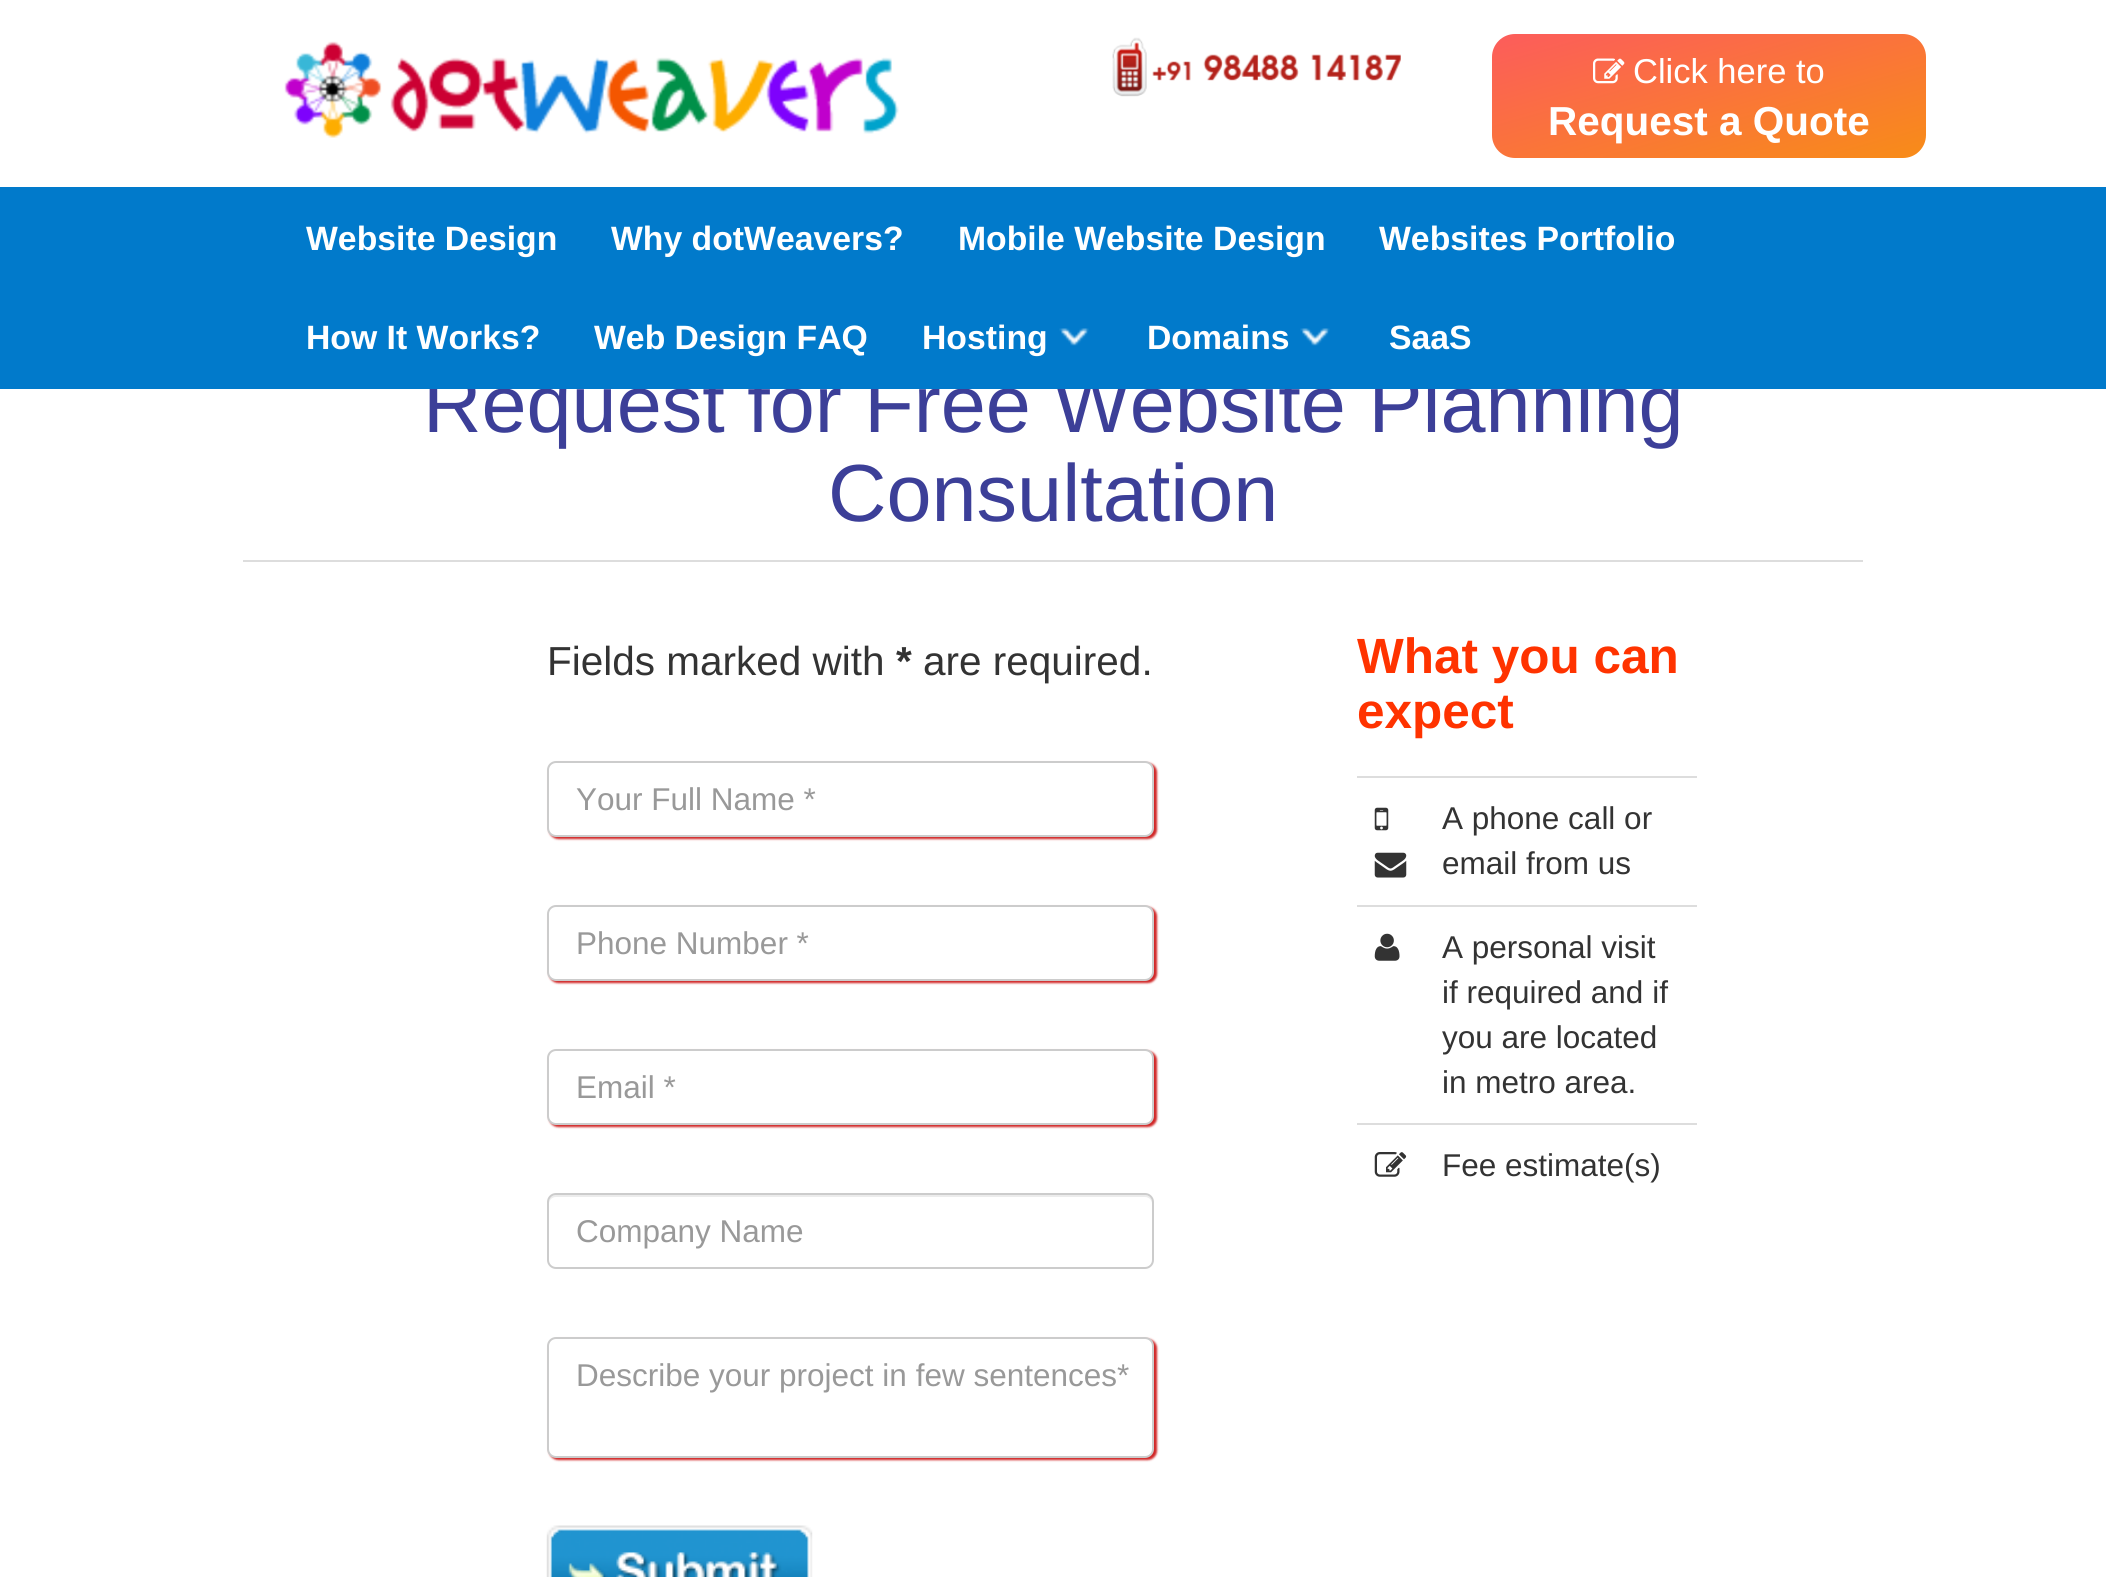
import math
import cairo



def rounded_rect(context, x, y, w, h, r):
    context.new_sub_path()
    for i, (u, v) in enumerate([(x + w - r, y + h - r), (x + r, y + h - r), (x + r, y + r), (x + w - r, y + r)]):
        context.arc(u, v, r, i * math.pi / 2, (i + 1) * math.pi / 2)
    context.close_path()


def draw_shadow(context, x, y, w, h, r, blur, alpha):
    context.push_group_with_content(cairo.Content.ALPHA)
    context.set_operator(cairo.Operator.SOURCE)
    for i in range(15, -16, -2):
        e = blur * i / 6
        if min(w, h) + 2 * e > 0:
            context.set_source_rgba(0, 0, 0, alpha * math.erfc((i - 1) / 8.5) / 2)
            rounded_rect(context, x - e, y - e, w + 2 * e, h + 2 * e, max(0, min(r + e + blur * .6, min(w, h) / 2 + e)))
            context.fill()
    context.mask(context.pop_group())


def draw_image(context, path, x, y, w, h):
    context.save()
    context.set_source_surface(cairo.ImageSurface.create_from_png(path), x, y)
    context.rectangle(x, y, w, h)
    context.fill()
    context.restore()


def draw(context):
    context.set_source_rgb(1, 1, 1)
    context.paint()
    draw_image(context, "images/1.png", 284, 41, 615, 97)
    draw_image(context, "images/2.png", 1112, 37, 289, 60)
    gradient = cairo.LinearGradient(1676, -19, 1741, 210)
    gradient.add_color_stop_rgba(0, 252 / 255, 92 / 255, 92 / 255, 1)
    gradient.add_color_stop_rgba(1, 248 / 255, 140 / 255, 24 / 255, 1)
    context.set_source(gradient)
    rounded_rect(context, 1492, 34, 434, 124, 23)
    context.fill()
    draw_image(context, "images/3.png", 1593, 58, 32, 26)
    context.set_source_rgb(221 / 255, 221 / 255, 221 / 255)
    context.rectangle(243, 560, 1620, 2)
    context.fill()
    context.set_source_rgb(200 / 255, 0, 0)
    draw_shadow(context, 549, 763, 608, 76, 9, 1, 0.85)
    context.set_source_rgb(1, 1, 1)
    rounded_rect(context, 548, 762, 605, 74, 8)
    context.fill_preserve()
    context.set_source_rgb(204 / 255, 204 / 255, 204 / 255)
    context.stroke()
    context.set_source_rgb(200 / 255, 0, 0)
    draw_shadow(context, 549, 907, 608, 76, 9, 1, 0.85)
    context.set_source_rgb(1, 1, 1)
    rounded_rect(context, 548, 906, 605, 74, 8)
    context.fill_preserve()
    context.set_source_rgb(204 / 255, 204 / 255, 204 / 255)
    context.stroke()
    context.set_source_rgb(200 / 255, 0, 0)
    draw_shadow(context, 549, 1051, 608, 76, 9, 1, 0.85)
    context.set_source_rgb(1, 1, 1)
    rounded_rect(context, 548, 1050, 605, 74, 8)
    context.fill_preserve()
    context.set_source_rgb(204 / 255, 204 / 255, 204 / 255)
    context.stroke()
    context.set_source_rgb(236 / 255, 236 / 255, 236 / 255)
    context.new_path()
    context.move_to(556, 1197)
    context.line_to(1145, 1197)
    context.curve_to(1149, 1197, 1152, 1200, 1152, 1204)
    context.line_to(1152, 1202)
    context.curve_to(1152, 1198, 1149, 1195, 1145, 1195)
    context.line_to(556, 1195)
    context.curve_to(552, 1195, 549, 1198, 549, 1202)
    context.line_to(549, 1204)
    context.curve_to(549, 1200, 552, 1197, 556, 1197)
    context.close_path()
    context.fill()
    rounded_rect(context, 548, 1194, 605, 74, 8)
    context.set_source_rgb(204 / 255, 204 / 255, 204 / 255)
    context.stroke()
    context.set_source_rgb(200 / 255, 0, 0)
    draw_shadow(context, 549, 1339, 608, 121, 9, 1, 0.85)
    context.set_source_rgb(1, 1, 1)
    rounded_rect(context, 548, 1338, 605, 119, 8)
    context.fill_preserve()
    context.set_source_rgb(204 / 255, 204 / 255, 204 / 255)
    context.stroke()
    draw_image(context, "images/6.png", 546, 1525, 267, 52)
    draw_image(context, "images/7.png", 1374, 807, 15, 24)
    draw_image(context, "images/8.png", 1374, 852, 33, 26)
    context.set_source_rgb(221 / 255, 221 / 255, 221 / 255)
    context.rectangle(1357, 776, 340, 2)
    context.fill()
    draw_image(context, "images/9.png", 1374, 933, 26, 28)
    context.rectangle(1357, 905, 340, 2)
    context.fill()
    draw_image(context, "images/10.png", 1374, 1152, 33, 25)
    context.rectangle(1357, 1123, 340, 2)
    context.fill()
    context.select_font_face("Liberation Sans")
    context.set_font_size(34.5)
    context.set_source_rgb(1, 1, 1)
    context.move_to(1633, 83)
    context.show_text("Click here to")
    context.select_font_face("Liberation Sans", cairo.FontSlant.NORMAL, cairo.FontWeight.BOLD)
    context.set_font_size(40.5)
    context.move_to(1548, 135)
    context.show_text("Request a Quote")
    context.select_font_face("Liberation Sans")
    context.set_font_size(81)
    context.set_source_rgb(60 / 255, 63 / 255, 152 / 255)
    context.move_to(423, 432)
    context.show_text("Request for Free Website Planning")
    context.set_source_rgb(1 / 255, 122 / 255, 203 / 255)
    context.rectangle(0, 187, 2106, 202)
    context.fill()
    context.select_font_face("Liberation Sans", cairo.FontSlant.NORMAL, cairo.FontWeight.BOLD)
    context.set_font_size(33.75)
    context.set_source_rgb(1, 1, 1)
    context.move_to(1389, 349)
    context.show_text("SaaS")
    draw_image(context, "images/5.png", 1300, 328, 30, 18)
    context.move_to(1147, 349)
    context.show_text("Domains")
    draw_image(context, "images/4.png", 1059, 328, 30, 18)
    context.move_to(922, 349)
    context.show_text("Hosting")
    context.move_to(594, 349)
    context.show_text("Web Design FAQ")
    context.move_to(306, 349)
    context.show_text("How It Works?")
    context.move_to(1379, 250)
    context.show_text("Websites Portfolio")
    context.move_to(958, 250)
    context.show_text("Mobile Website Design")
    context.move_to(611, 250)
    context.show_text("Why dotWeavers?")
    context.move_to(306, 250)
    context.show_text("Website Design")
    context.select_font_face("Liberation Sans")
    context.set_font_size(81)
    context.set_source_rgb(60 / 255, 63 / 255, 152 / 255)
    context.move_to(828, 521)
    context.show_text("Consultation")
    context.set_font_size(40.5)
    context.set_source_rgb(51 / 255, 51 / 255, 51 / 255)
    context.move_to(547, 675)
    context.show_text("Fields marked with")
    context.select_font_face("Liberation Sans", cairo.FontSlant.NORMAL, cairo.FontWeight.BOLD)
    context.move_to(896, 675)
    context.show_text("*")
    context.select_font_face("Liberation Sans")
    context.move_to(923, 675)
    context.show_text("are required.")
    context.set_font_size(31.5)
    context.set_source_rgb(153 / 255, 153 / 255, 153 / 255)
    context.move_to(576, 810)
    context.show_text("Your Full Name *")
    context.move_to(576, 954)
    context.show_text("Phone Number *")
    context.move_to(576, 1098)
    context.show_text("Email *")
    context.move_to(576, 1242)
    context.show_text("Company Name")
    context.move_to(576, 1386)
    context.show_text("Describe your project in few sentences*")
    context.select_font_face("Liberation Sans", cairo.FontSlant.NORMAL, cairo.FontWeight.BOLD)
    context.set_font_size(49.5)
    context.set_source_rgb(1, 51 / 255, 0)
    context.move_to(1357, 673)
    context.show_text("What you can")
    context.move_to(1357, 728)
    context.show_text("expect")
    context.select_font_face("Liberation Sans")
    context.set_font_size(31.5)
    context.set_source_rgb(51 / 255, 51 / 255, 51 / 255)
    context.move_to(1442, 829)
    context.show_text("A phone call or")
    context.move_to(1442, 874)
    context.show_text("email from us")
    context.move_to(1442, 958)
    context.show_text("A personal visit")
    context.move_to(1442, 1003)
    context.show_text("if required and if")
    context.move_to(1442, 1048)
    context.show_text("you are located")
    context.move_to(1442, 1093)
    context.show_text("in metro area.")
    context.move_to(1442, 1176)
    context.show_text("Fee estimate(s)")


surface = cairo.ImageSurface(cairo.Format.RGB24, 2106, 1577)
context = cairo.Context(surface)
options = cairo.FontOptions()
options.set_hint_metrics(cairo.HintMetrics.OFF)
options.set_hint_style(cairo.HintStyle.NONE)
context.set_font_options(options)
context.set_miter_limit(4)
draw(context)
surface.write_to_png("out.png")
